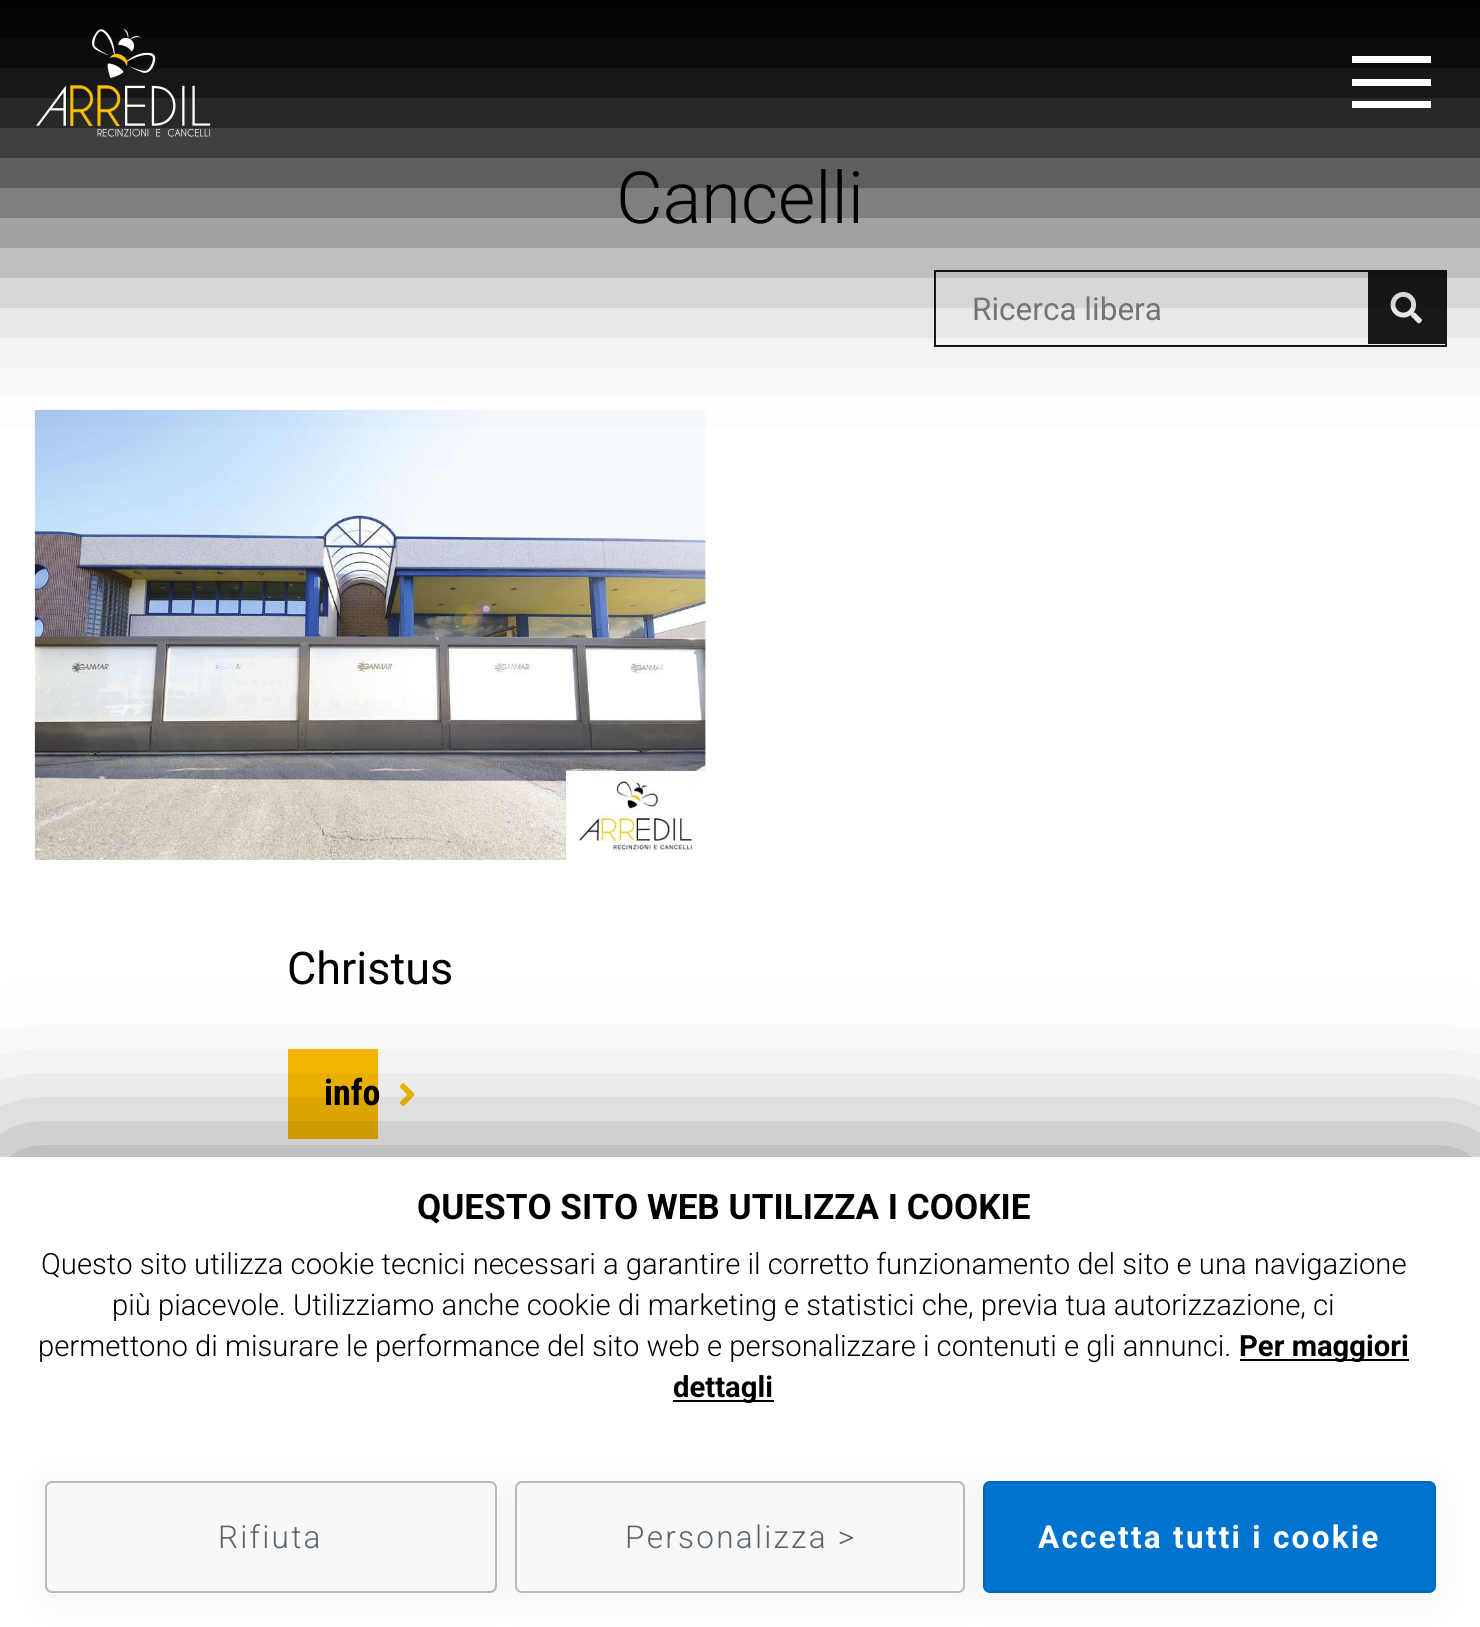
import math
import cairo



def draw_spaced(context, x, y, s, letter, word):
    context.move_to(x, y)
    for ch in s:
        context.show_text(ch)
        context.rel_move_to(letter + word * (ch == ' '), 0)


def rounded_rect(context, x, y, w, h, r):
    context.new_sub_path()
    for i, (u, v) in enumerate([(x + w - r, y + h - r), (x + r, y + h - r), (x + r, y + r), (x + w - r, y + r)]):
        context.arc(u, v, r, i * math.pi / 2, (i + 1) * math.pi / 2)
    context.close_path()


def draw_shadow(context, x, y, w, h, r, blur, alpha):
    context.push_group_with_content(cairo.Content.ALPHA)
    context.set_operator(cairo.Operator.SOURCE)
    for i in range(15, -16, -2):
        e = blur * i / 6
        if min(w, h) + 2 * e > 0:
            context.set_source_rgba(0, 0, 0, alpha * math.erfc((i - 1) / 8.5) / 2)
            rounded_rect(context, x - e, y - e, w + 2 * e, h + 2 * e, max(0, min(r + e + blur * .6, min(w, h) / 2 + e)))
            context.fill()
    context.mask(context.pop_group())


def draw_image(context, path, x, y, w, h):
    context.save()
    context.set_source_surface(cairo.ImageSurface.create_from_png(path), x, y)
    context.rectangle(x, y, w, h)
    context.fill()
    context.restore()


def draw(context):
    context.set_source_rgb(1, 1, 1)
    context.paint()
    context.rectangle(935, 271, 511, 75)
    context.set_source_rgb(26 / 255, 26 / 255, 26 / 255)
    context.stroke()
    context.rectangle(1368, 272, 77, 72)
    context.fill()
    draw_image(context, "images/2.png", 1390, 291, 32, 33)
    draw_image(context, "images/3.png", 34, 409, 672, 451)
    context.set_source_rgb(0, 0, 0)
    draw_shadow(context, -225, -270, 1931, 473, 0, 90, 1)
    draw_image(context, "images/1.png", 36, 28, 175, 109)
    context.set_source_rgb(1, 1, 1)
    context.rectangle(1352, 56, 79, 7)
    context.fill()
    context.rectangle(1352, 79, 79, 7)
    context.fill()
    context.rectangle(1352, 101, 79, 7)
    context.fill()
    context.set_source_rgb(252 / 255, 189 / 255, 0)
    context.rectangle(288, 1049, 90, 90)
    context.fill()
    draw_image(context, "images/4.png", 400, 1083, 15, 23)
    context.set_source_rgb(0, 0, 0)
    draw_shadow(context, 0, 1157, 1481, 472, 0, 72, 0.5)
    context.set_source_rgb(1, 1, 1)
    context.rectangle(0, 1157, 1480, 470)
    context.fill()
    context.set_source_rgb(0, 0, 0)
    context.rectangle(1240, 1359, 169, 2)
    context.fill()
    context.rectangle(673, 1400, 101, 2)
    context.fill()
    context.set_source_rgb(0, 0, 0)
    draw_shadow(context, 45, 1485, 452, 113, 7, 21.5, 0.05)
    context.set_source_rgb(248 / 255, 248 / 255, 248 / 255)
    rounded_rect(context, 46, 1482, 450, 110, 6)
    context.fill_preserve()
    context.set_source_rgb(185 / 255, 185 / 255, 185 / 255)
    context.stroke()
    context.set_source_rgb(0, 0, 0)
    draw_shadow(context, 983, 1485, 453, 113, 7, 21.5, 0.05)
    context.set_source_rgb(0, 115 / 255, 206 / 255)
    rounded_rect(context, 984, 1482, 451, 110, 6)
    context.fill_preserve()
    context.set_source_rgb(0, 103 / 255, 185 / 255)
    context.stroke()
    context.set_source_rgb(0, 0, 0)
    draw_shadow(context, 515, 1485, 450, 113, 7, 21.5, 0.05)
    context.set_source_rgb(248 / 255, 248 / 255, 248 / 255)
    rounded_rect(context, 516, 1482, 448, 110, 6)
    context.fill_preserve()
    context.set_source_rgb(185 / 255, 185 / 255, 185 / 255)
    context.stroke()
    context.select_font_face("Roboto Light")
    context.set_font_size(72)
    context.set_source_rgb(0, 0, 0)
    context.move_to(616, 223)
    context.show_text("Cancelli")
    context.select_font_face("Roboto")
    context.set_font_size(31.5)
    context.set_source_rgb(117 / 255, 117 / 255, 117 / 255)
    context.move_to(972, 320)
    context.show_text("Ricerca libera")
    context.set_font_size(45)
    context.set_source_rgb(0, 0, 0)
    context.move_to(287, 984)
    context.show_text("Christus")
    context.select_font_face("Roboto Condensed", cairo.FontSlant.NORMAL, cairo.FontWeight.BOLD)
    context.set_font_size(36)
    context.move_to(324, 1105)
    context.show_text("info")
    context.select_font_face("Roboto", cairo.FontSlant.NORMAL, cairo.FontWeight.BOLD)
    context.set_font_size(35.1)
    context.move_to(417, 1219)
    context.show_text("QUESTO SITO WEB UTILIZZA I COOKIE")
    context.select_font_face("Roboto Light")
    context.set_font_size(29.25)
    context.move_to(41, 1274)
    context.show_text("Questo sito utilizza cookie tecnici necessari a garantire il corretto funzionamento del sito e una navigazione")
    context.move_to(112, 1315)
    context.show_text("più piacevole. Utilizziamo anche cookie di marketing e statistici che, previa tua autorizzazione, ci")
    context.move_to(38, 1356)
    context.show_text("permettono di misurare le performance del sito web e personalizzare i contenuti e gli annunci.")
    context.select_font_face("Roboto", cairo.FontSlant.NORMAL, cairo.FontWeight.BOLD)
    context.move_to(1239, 1356)
    context.show_text("Per maggiori")
    context.move_to(673, 1397)
    context.show_text("dettagli")
    context.select_font_face("Roboto Light")
    context.set_font_size(31.5)
    context.set_source_rgb(89 / 255, 99 / 255, 109 / 255)
    draw_spaced(context, 218, 1548, "Rifiuta", 2.25, 0)
    draw_spaced(context, 625, 1548, "Personalizza >", 2.25, 0)
    context.select_font_face("Roboto", cairo.FontSlant.NORMAL, cairo.FontWeight.BOLD)
    context.set_source_rgb(1, 1, 1)
    draw_spaced(context, 1038, 1548, "Accetta tutti i cookie", 2.25, 0)


surface = cairo.ImageSurface(cairo.Format.RGB24, 1480, 1627)
context = cairo.Context(surface)
options = cairo.FontOptions()
options.set_hint_metrics(cairo.HintMetrics.OFF)
options.set_hint_style(cairo.HintStyle.NONE)
context.set_font_options(options)
context.set_miter_limit(4)
draw(context)
surface.write_to_png("out.png")
